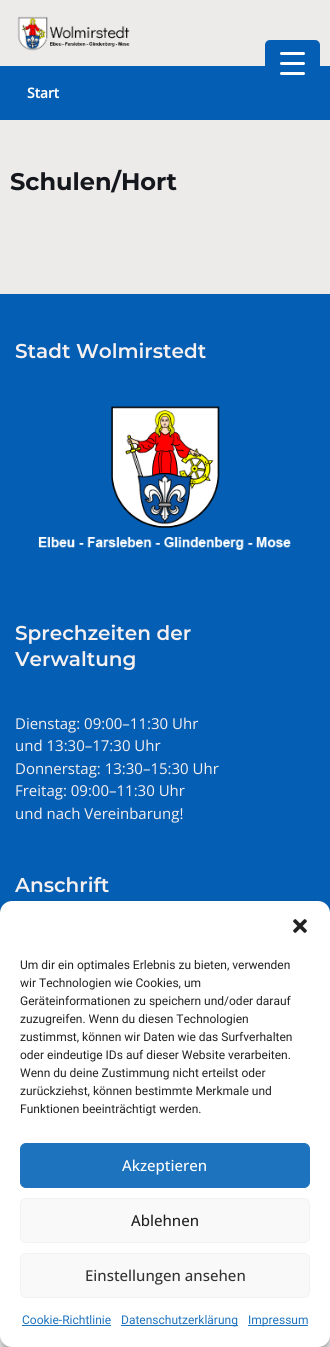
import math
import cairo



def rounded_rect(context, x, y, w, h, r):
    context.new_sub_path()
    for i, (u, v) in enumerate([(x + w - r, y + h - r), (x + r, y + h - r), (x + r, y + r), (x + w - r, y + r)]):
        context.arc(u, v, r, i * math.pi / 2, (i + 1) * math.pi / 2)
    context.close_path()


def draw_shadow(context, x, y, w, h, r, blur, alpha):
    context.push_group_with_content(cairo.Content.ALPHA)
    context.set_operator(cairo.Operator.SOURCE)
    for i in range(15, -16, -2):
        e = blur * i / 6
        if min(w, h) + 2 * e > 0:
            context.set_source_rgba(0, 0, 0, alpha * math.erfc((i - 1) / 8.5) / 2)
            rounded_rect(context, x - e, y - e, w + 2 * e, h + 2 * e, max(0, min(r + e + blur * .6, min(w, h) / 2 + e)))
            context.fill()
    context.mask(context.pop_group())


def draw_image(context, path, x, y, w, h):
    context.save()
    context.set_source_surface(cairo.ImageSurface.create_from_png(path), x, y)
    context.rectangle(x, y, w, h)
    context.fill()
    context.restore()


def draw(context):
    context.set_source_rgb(237 / 255, 234 / 255, 234 / 255)
    context.paint()
    context.set_source_rgb(4 / 255, 95 / 255, 180 / 255)
    context.rectangle(0, 66, 330, 54)
    context.fill()
    rounded_rect(context, 265, 40, 55, 44, 5)
    context.fill()
    context.set_source_rgb(1, 1, 1)
    rounded_rect(context, 280, 62, 25, 3, 1.5)
    context.fill()
    rounded_rect(context, 280, 52, 25, 3, 1.5)
    context.fill()
    rounded_rect(context, 280, 72, 25, 3, 1.5)
    context.fill()
    draw_image(context, "images/1.png", 17, 16, 113, 35)
    context.set_source_rgb(4 / 255, 95 / 255, 180 / 255)
    context.rectangle(0, 294, 330, 619)
    context.fill()
    draw_image(context, "images/2.png", 38, 406, 253, 144)
    context.set_source_rgb(1, 1, 1)
    context.rectangle(0, 1335, 330, 12)
    context.fill()
    context.set_source_rgb(0, 0, 0)
    draw_shadow(context, 0, 907, 330, 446, 12, 3, 0.23)
    draw_shadow(context, 0, 911, 330, 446, 12, 10, 0.19)
    context.set_source_rgb(1, 1, 1)
    rounded_rect(context, 0, 901, 330, 446, 12)
    context.fill()
    draw_image(context, "images/3.png", 293, 919, 14, 14)
    context.set_source_rgb(30 / 255, 115 / 255, 190 / 255)
    rounded_rect(context, 20.5, 1143.5, 289, 44, 5.5)
    context.fill_preserve()
    context.set_line_width(1)
    context.stroke()
    context.set_source_rgb(249 / 255, 249 / 255, 249 / 255)
    rounded_rect(context, 20.5, 1198.5, 289, 44, 5.5)
    context.fill_preserve()
    context.set_source_rgb(242 / 255, 242 / 255, 242 / 255)
    context.stroke()
    context.set_source_rgb(249 / 255, 249 / 255, 249 / 255)
    rounded_rect(context, 20.5, 1253.5, 289, 44, 5.5)
    context.fill_preserve()
    context.set_source_rgb(242 / 255, 242 / 255, 242 / 255)
    context.stroke()
    context.set_source_rgb(30 / 255, 115 / 255, 190 / 255)
    context.rectangle(22, 1325, 89, 1)
    context.fill()
    context.rectangle(121, 1325, 117, 1)
    context.fill()
    context.rectangle(248, 1325, 60, 1)
    context.fill()
    context.select_font_face("Open Sans", cairo.FontSlant.NORMAL, cairo.FontWeight.BOLD)
    context.set_font_size(14)
    context.set_source_rgb(1, 1, 1)
    context.move_to(27, 98)
    context.show_text("Start")
    context.select_font_face("Montserrat", cairo.FontSlant.NORMAL, cairo.FontWeight.BOLD)
    context.set_font_size(24)
    context.set_source_rgb(20 / 255, 23 / 255, 28 / 255)
    context.move_to(10, 190)
    context.show_text("Schulen/Hort")
    context.select_font_face("Montserrat SemiBold")
    context.set_font_size(20)
    context.set_source_rgb(246 / 255, 240 / 255, 240 / 255)
    context.move_to(15, 358)
    context.show_text("Stadt Wolmirstedt")
    context.move_to(15, 640)
    context.show_text("Sprechzeiten der")
    context.move_to(15, 666)
    context.show_text("Verwaltung")
    context.select_font_face("Open Sans")
    context.set_font_size(15)
    context.move_to(15, 729)
    context.show_text("Dienstag: 09:00–11:30 Uhr")
    context.move_to(15, 751)
    context.show_text("und 13:30–17:30 Uhr")
    context.move_to(15, 774)
    context.show_text("Donnerstag: 13:30–15:30 Uhr")
    context.move_to(15, 796)
    context.show_text("Freitag: 09:00–11:30 Uhr")
    context.move_to(15, 819)
    context.show_text("und nach Vereinbarung!")
    context.select_font_face("Montserrat SemiBold")
    context.set_font_size(20)
    context.move_to(15, 892)
    context.show_text("Anschrift")
    context.select_font_face("Roboto")
    context.set_font_size(12)
    context.set_source_rgb(34 / 255, 34 / 255, 34 / 255)
    context.move_to(20, 969)
    context.show_text("Um dir ein optimales Erlebnis zu bieten, verwenden")
    context.move_to(20, 987)
    context.show_text("wir Technologien wie Cookies, um")
    context.move_to(20, 1005)
    context.show_text("Geräteinformationen zu speichern und/oder darauf")
    context.move_to(20, 1023)
    context.show_text("zuzugreifen. Wenn du diesen Technologien")
    context.move_to(20, 1041)
    context.show_text("zustimmst, können wir Daten wie das Surfverhalten")
    context.move_to(20, 1059)
    context.show_text("oder eindeutige IDs auf dieser Website verarbeiten.")
    context.move_to(20, 1077)
    context.show_text("Wenn du deine Zustimmung nicht erteilst oder")
    context.move_to(20, 1095)
    context.show_text("zurückziehst, können bestimmte Merkmale und")
    context.move_to(20, 1113)
    context.show_text("Funktionen beeinträchtigt werden.")
    context.select_font_face("Open Sans Medium")
    context.set_font_size(15)
    context.set_source_rgb(1, 1, 1)
    context.move_to(122, 1171)
    context.show_text("Akzeptieren")
    context.set_source_rgb(34 / 255, 34 / 255, 34 / 255)
    context.move_to(131, 1226)
    context.show_text("Ablehnen")
    context.set_source_rgb(51 / 255, 51 / 255, 51 / 255)
    context.move_to(85, 1281)
    context.show_text("Einstellungen ansehen")
    context.select_font_face("Roboto")
    context.set_font_size(12)
    context.set_source_rgb(30 / 255, 115 / 255, 190 / 255)
    context.move_to(22, 1324)
    context.show_text("Cookie-Richtlinie")
    context.move_to(121, 1324)
    context.show_text("Datenschutzerklärung")
    context.move_to(248, 1324)
    context.show_text("Impressum")


surface = cairo.ImageSurface(cairo.Format.RGB24, 330, 1347)
context = cairo.Context(surface)
options = cairo.FontOptions()
options.set_hint_metrics(cairo.HintMetrics.OFF)
options.set_hint_style(cairo.HintStyle.NONE)
context.set_font_options(options)
context.set_miter_limit(4)
draw(context)
surface.write_to_png("out.png")
